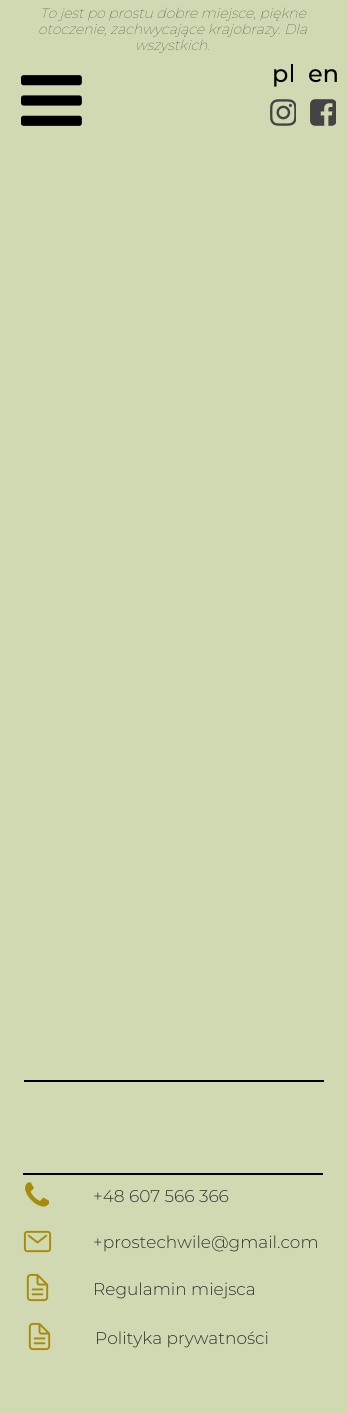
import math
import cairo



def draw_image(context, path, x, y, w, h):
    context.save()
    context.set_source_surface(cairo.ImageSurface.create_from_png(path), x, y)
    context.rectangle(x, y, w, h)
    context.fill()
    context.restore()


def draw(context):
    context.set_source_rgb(208 / 255, 217 / 255, 178 / 255)
    context.paint()
    draw_image(context, "images/1.png", 21, 75, 61, 51)
    draw_image(context, "images/2.png", 274, 64, 19, 23)
    draw_image(context, "images/3.png", 309, 69, 28, 14)
    draw_image(context, "images/4.png", 270, 99, 26, 27)
    draw_image(context, "images/5.png", 310, 99, 26, 27)
    context.set_source_rgb(0, 0, 0)
    context.rectangle(24, 1080, 300, 2)
    context.fill()
    context.rectangle(23, 1173, 300, 2)
    context.fill()
    draw_image(context, "images/6.png", 25, 1182, 24, 25)
    draw_image(context, "images/7.png", 23, 1230, 29, 23)
    draw_image(context, "images/8.png", 26, 1273, 23, 29)
    draw_image(context, "images/8.png", 28, 1322, 23, 29)
    context.select_font_face("Montserrat Thin", cairo.FontSlant.ITALIC)
    context.set_font_size(14)
    context.set_source_rgb(51 / 255, 51 / 255, 51 / 255)
    context.move_to(40, 18)
    context.show_text("To jest po prostu dobre miejsce, piękne")
    context.move_to(38, 34)
    context.show_text("otoczenie, zachwycające krajobrazy. Dla")
    context.move_to(135, 50)
    context.show_text("wszystkich.")
    context.select_font_face("Montserrat Light")
    context.set_font_size(17)
    context.move_to(93, 1202)
    context.show_text("+48 607 566 366")
    context.move_to(93, 1248)
    context.show_text("+prostechwile@gmail.com")
    context.move_to(93, 1295)
    context.show_text("Regulamin miejsca")
    context.move_to(95, 1344)
    context.show_text("Polityka prywatności")


surface = cairo.ImageSurface(cairo.Format.RGB24, 347, 1414)
context = cairo.Context(surface)
options = cairo.FontOptions()
options.set_hint_metrics(cairo.HintMetrics.OFF)
options.set_hint_style(cairo.HintStyle.NONE)
context.set_font_options(options)
context.set_miter_limit(4)
draw(context)
surface.write_to_png("out.png")
